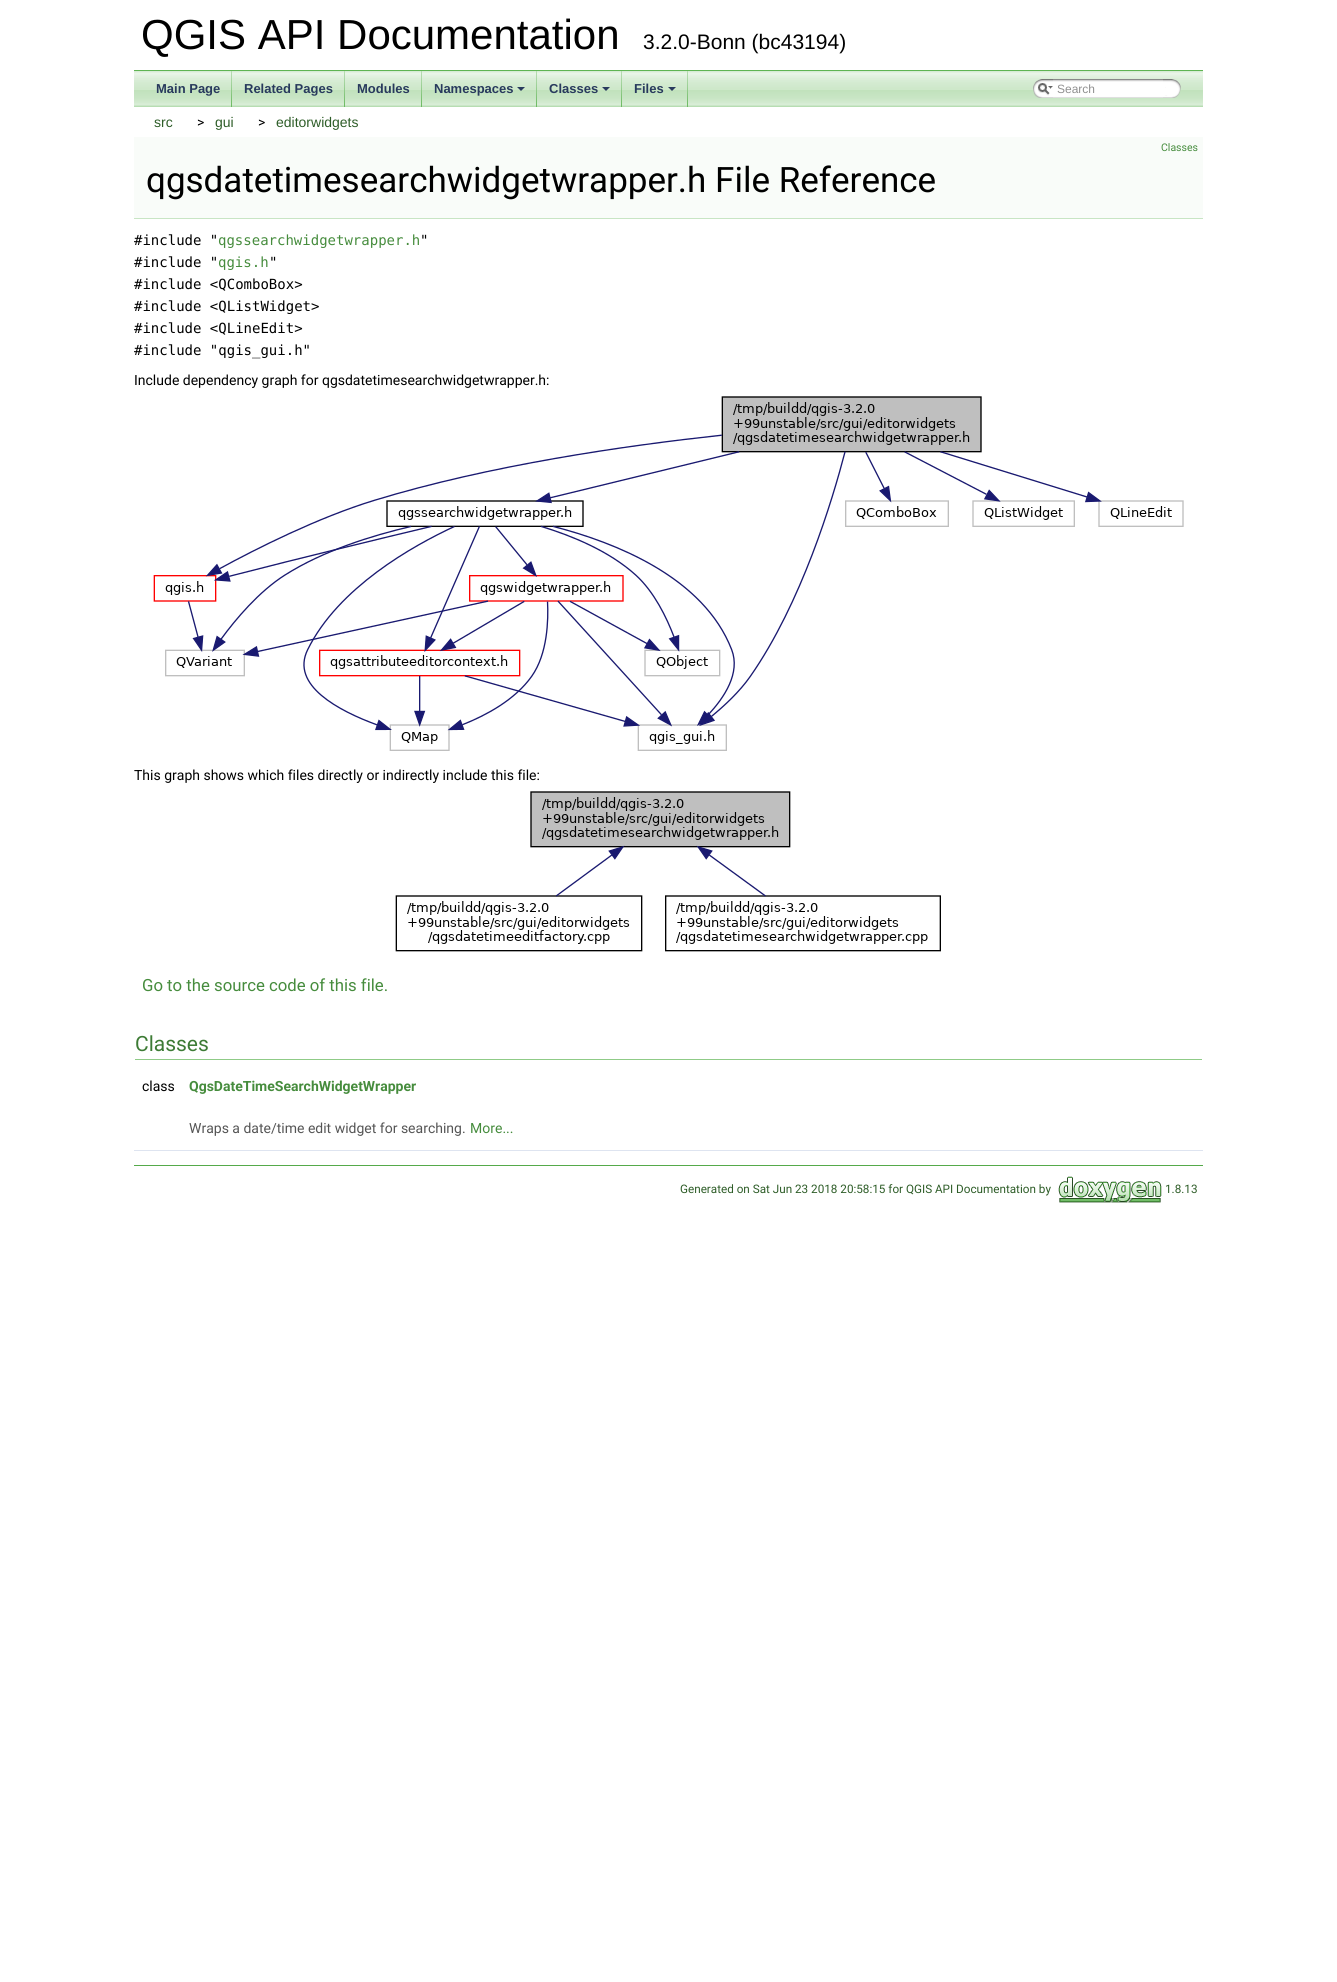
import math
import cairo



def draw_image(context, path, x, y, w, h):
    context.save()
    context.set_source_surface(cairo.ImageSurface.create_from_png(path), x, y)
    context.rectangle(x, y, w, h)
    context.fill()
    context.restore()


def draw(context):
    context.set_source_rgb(1, 1, 1)
    context.paint()
    context.set_source_rgb(95 / 255, 180 / 255, 83 / 255)
    context.rectangle(134, 70, 1069, 1)
    context.fill()
    draw_image(context, "images/1.png", 134, 71, 1069, 36)
    draw_image(context, "images/2.png", 231, 71, 1, 36)
    draw_image(context, "images/2.png", 344, 71, 1, 36)
    draw_image(context, "images/2.png", 421, 71, 1, 36)
    draw_image(context, "images/2.png", 536, 71, 1, 36)
    context.set_source_rgb(40 / 255, 58 / 255, 93 / 255)
    context.new_path()
    context.move_to(517, 87)
    context.line_to(525, 87)
    context.line_to(521, 91)
    context.close_path()
    context.fill()
    draw_image(context, "images/2.png", 621, 71, 1, 36)
    context.new_path()
    context.move_to(602, 87)
    context.line_to(610, 87)
    context.line_to(606, 91)
    context.close_path()
    context.fill()
    draw_image(context, "images/2.png", 687, 71, 1, 36)
    context.new_path()
    context.move_to(668, 87)
    context.line_to(676, 87)
    context.line_to(672, 91)
    context.close_path()
    context.fill()
    draw_image(context, "images/3.png", 1033, 79, 20, 19)
    draw_image(context, "images/4.png", 1038, 83, 15, 12)
    draw_image(context, "images/5.png", 1053, 79, 110, 19)
    draw_image(context, "images/6.png", 1163, 79, 18, 19)
    context.set_source_rgb(249 / 255, 252 / 255, 249 / 255)
    context.rectangle(134, 137, 1069, 81)
    context.fill()
    context.set_source_rgb(200 / 255, 229 / 255, 196 / 255)
    context.rectangle(134, 218, 1069, 1)
    context.fill()
    draw_image(context, "images/7.png", 153, 396, 1031, 355)
    draw_image(context, "images/8.png", 395, 791, 546, 161)
    context.set_source_rgb(143 / 255, 203 / 255, 135 / 255)
    context.rectangle(135, 1059, 1067, 1)
    context.fill()
    context.set_source_rgb(222 / 255, 228 / 255, 240 / 255)
    context.rectangle(134, 1150, 1069, 1)
    context.fill()
    context.set_source_rgb(85 / 255, 170 / 255, 74 / 255)
    context.rectangle(134, 1165, 1069, 1)
    context.fill()
    draw_image(context, "images/9.png", 1058, 1176, 104, 27)
    context.select_font_face("Liberation Sans")
    context.set_font_size(42)
    context.set_source_rgb(0, 0, 0)
    context.move_to(141, 49)
    context.show_text("QGIS API Documentation")
    context.set_font_size(21)
    context.move_to(643, 49)
    context.show_text("3.2.0-Bonn (bc43194)")
    context.select_font_face("Liberation Sans", cairo.FontSlant.NORMAL, cairo.FontWeight.BOLD)
    context.set_font_size(13)
    context.set_source_rgb(40 / 255, 58 / 255, 93 / 255)
    context.move_to(156, 93)
    context.show_text("Main Page")
    context.move_to(244, 93)
    context.show_text("Related Pages")
    context.move_to(357, 93)
    context.show_text("Modules")
    context.move_to(434, 93)
    context.show_text("Namespaces")
    context.move_to(549, 93)
    context.show_text("Classes")
    context.move_to(634, 93)
    context.show_text("Files")
    context.select_font_face("Liberation Sans")
    context.set_font_size(12)
    context.set_source_rgb(144 / 255, 144 / 255, 144 / 255)
    context.move_to(1057, 93)
    context.show_text("Search")
    context.set_font_size(14)
    context.set_source_rgb(46 / 255, 93 / 255, 40 / 255)
    context.move_to(154, 127)
    context.show_text("src")
    context.select_font_face("Roboto")
    context.set_source_rgb(0, 0, 0)
    context.move_to(197, 127)
    context.show_text(">")
    context.select_font_face("Liberation Sans")
    context.set_source_rgb(46 / 255, 93 / 255, 40 / 255)
    context.move_to(215, 127)
    context.show_text("gui")
    context.select_font_face("Roboto")
    context.set_source_rgb(0, 0, 0)
    context.move_to(258, 127)
    context.show_text(">")
    context.select_font_face("Liberation Sans")
    context.set_source_rgb(46 / 255, 93 / 255, 40 / 255)
    context.move_to(276, 127)
    context.show_text("editorwidgets")
    context.select_font_face("Roboto")
    context.set_font_size(10.5)
    context.set_source_rgb(70 / 255, 140 / 255, 61 / 255)
    context.move_to(1161, 151)
    context.show_text("Classes")
    context.set_font_size(35)
    context.set_source_rgb(0, 0, 0)
    context.move_to(146, 192)
    context.show_text("qgsdatetimesearchwidgetwrapper.h File Reference")
    context.select_font_face("DejaVu Sans Mono")
    context.set_font_size(14)
    context.move_to(134, 245)
    context.show_text("#include \"")
    context.set_source_rgb(70 / 255, 140 / 255, 61 / 255)
    context.move_to(218, 245)
    context.show_text("qgssearchwidgetwrapper.h")
    context.set_source_rgb(0, 0, 0)
    context.move_to(420, 245)
    context.show_text("\"")
    context.move_to(134, 267)
    context.show_text("#include \"")
    context.set_source_rgb(70 / 255, 140 / 255, 61 / 255)
    context.move_to(218, 267)
    context.show_text("qgis.h")
    context.set_source_rgb(0, 0, 0)
    context.move_to(269, 267)
    context.show_text("\"")
    context.move_to(134, 289)
    context.show_text("#include <QComboBox>")
    context.move_to(134, 311)
    context.show_text("#include <QListWidget>")
    context.move_to(134, 333)
    context.show_text("#include <QLineEdit>")
    context.move_to(134, 355)
    context.show_text("#include \"qgis_gui.h\"")
    context.select_font_face("Roboto")
    context.move_to(134, 385)
    context.show_text("Include dependency graph for qgsdatetimesearchwidgetwrapper.h:")
    context.move_to(134, 780)
    context.show_text("This graph shows which files directly or indirectly include this file:")
    context.set_font_size(16.75)
    context.set_source_rgb(70 / 255, 140 / 255, 61 / 255)
    context.move_to(142, 991)
    context.show_text("Go to the source code of this file.")
    context.set_font_size(21)
    context.set_source_rgb(61 / 255, 123 / 255, 53 / 255)
    context.move_to(135, 1051)
    context.show_text("Classes")
    context.set_font_size(14)
    context.set_source_rgb(0, 0, 0)
    context.move_to(142, 1091)
    context.show_text("class")
    context.select_font_face("Roboto", cairo.FontSlant.NORMAL, cairo.FontWeight.BOLD)
    context.set_source_rgb(70 / 255, 140 / 255, 61 / 255)
    context.move_to(189, 1091)
    context.show_text("QgsDateTimeSearchWidgetWrapper")
    context.select_font_face("Roboto")
    context.set_source_rgb(85 / 255, 85 / 255, 85 / 255)
    context.move_to(189, 1133)
    context.show_text("Wraps a date/time edit widget for searching.")
    context.set_source_rgb(70 / 255, 140 / 255, 61 / 255)
    context.move_to(470, 1133)
    context.show_text("More...")
    context.set_font_size(11.7)
    context.set_source_rgb(46 / 255, 93 / 255, 40 / 255)
    context.move_to(680, 1193)
    context.show_text("Generated on Sat Jun 23 2018 20:58:15 for QGIS API Documentation by")
    context.move_to(1165, 1193)
    context.show_text("1.8.13")


surface = cairo.ImageSurface(cairo.Format.RGB24, 1337, 1982)
context = cairo.Context(surface)
options = cairo.FontOptions()
options.set_hint_metrics(cairo.HintMetrics.OFF)
options.set_hint_style(cairo.HintStyle.NONE)
context.set_font_options(options)
context.set_miter_limit(4)
draw(context)
surface.write_to_png("out.png")
